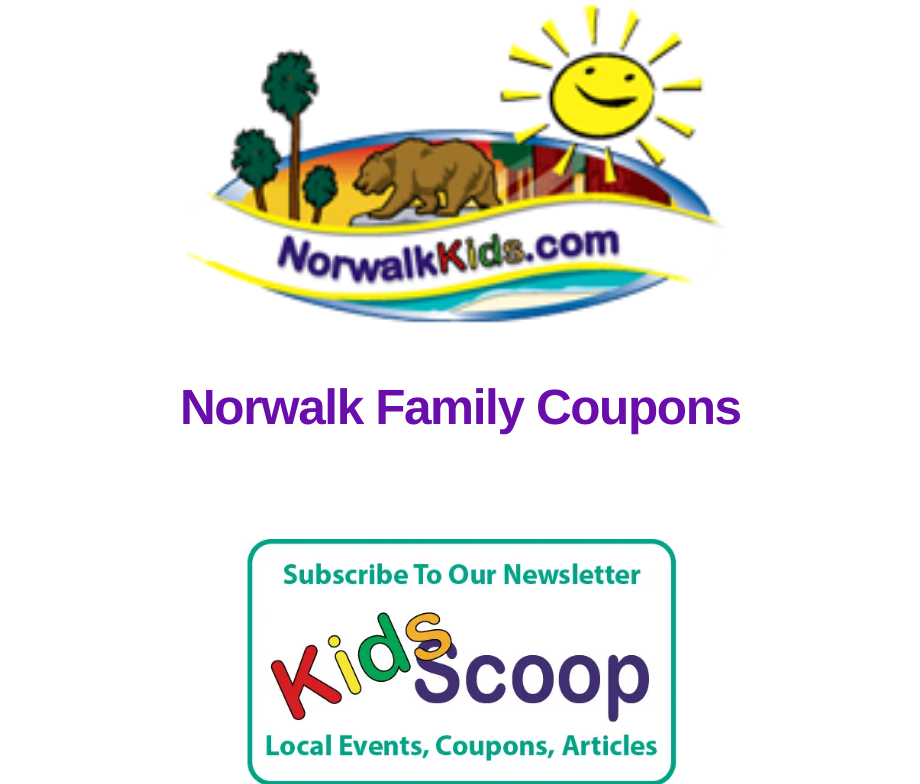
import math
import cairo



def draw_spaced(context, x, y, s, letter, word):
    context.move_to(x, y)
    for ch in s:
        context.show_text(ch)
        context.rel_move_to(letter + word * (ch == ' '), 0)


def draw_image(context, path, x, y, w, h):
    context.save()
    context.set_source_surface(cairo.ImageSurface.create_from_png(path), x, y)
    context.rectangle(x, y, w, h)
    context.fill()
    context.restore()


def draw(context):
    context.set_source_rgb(1, 1, 1)
    context.paint()
    draw_image(context, "images/1.png", 187, 4, 540, 319)
    draw_image(context, "images/2.png", 247, 539, 430, 245)
    context.select_font_face("Liberation Sans", cairo.FontSlant.NORMAL, cairo.FontWeight.BOLD)
    context.set_font_size(49.5)
    context.set_source_rgb(106 / 255, 13 / 255, 173 / 255)
    draw_spaced(context, 180, 424, "Norwalk Family Coupons", -1.4, 0)


surface = cairo.ImageSurface(cairo.Format.RGB24, 920, 784)
context = cairo.Context(surface)
options = cairo.FontOptions()
options.set_hint_metrics(cairo.HintMetrics.OFF)
options.set_hint_style(cairo.HintStyle.NONE)
context.set_font_options(options)
context.set_miter_limit(4)
draw(context)
surface.write_to_png("out.png")
